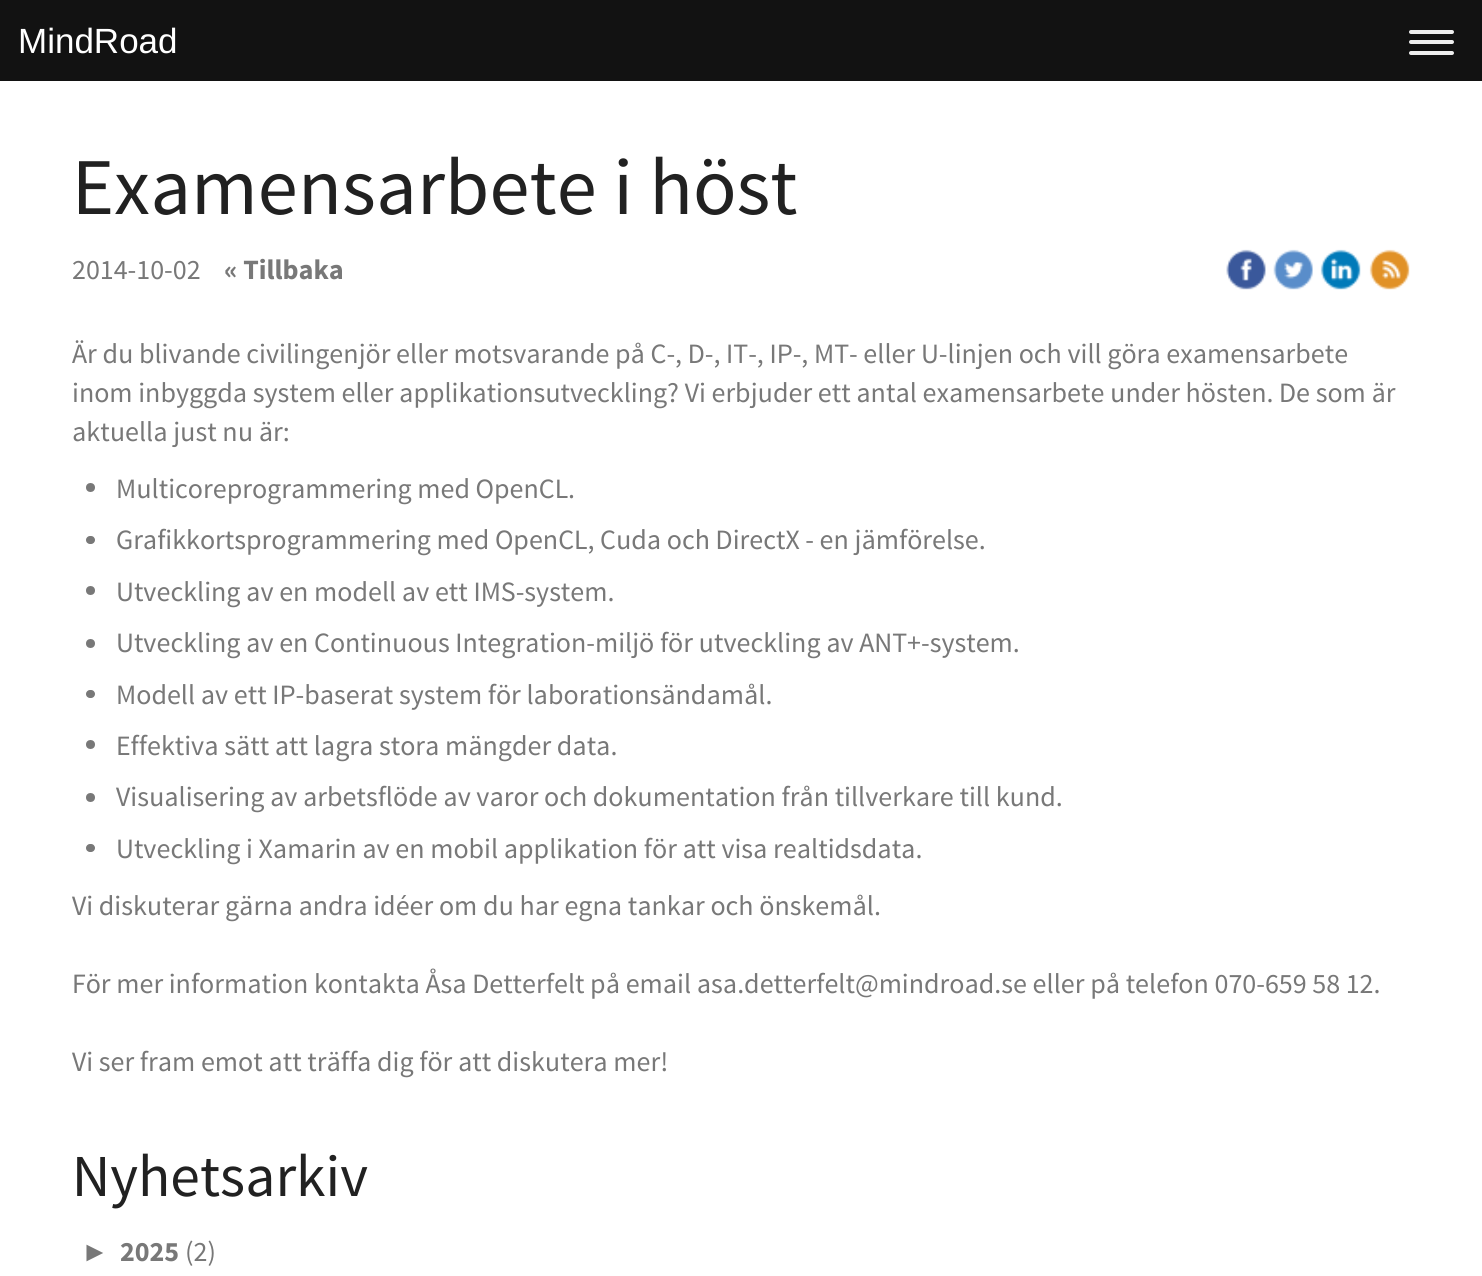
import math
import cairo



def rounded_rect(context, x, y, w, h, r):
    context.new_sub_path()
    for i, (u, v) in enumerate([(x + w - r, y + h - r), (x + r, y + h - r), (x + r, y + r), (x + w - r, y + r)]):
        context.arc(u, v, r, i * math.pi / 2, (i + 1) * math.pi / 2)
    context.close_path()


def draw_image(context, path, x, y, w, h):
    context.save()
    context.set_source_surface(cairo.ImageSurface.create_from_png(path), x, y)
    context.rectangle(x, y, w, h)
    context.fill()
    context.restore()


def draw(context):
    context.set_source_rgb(1, 1, 1)
    context.paint()
    context.set_source_rgb(18 / 255, 18 / 255, 18 / 255)
    context.rectangle(0, 0, 1482, 81)
    context.fill()
    context.set_source_rgb(238 / 255, 238 / 255, 238 / 255)
    rounded_rect(context, 1409, 30, 45, 4, 2)
    context.fill()
    rounded_rect(context, 1409, 40, 45, 4, 2)
    context.fill()
    rounded_rect(context, 1409, 51, 45, 4, 2)
    context.fill()
    draw_image(context, "images/1.png", 1226, 249, 40, 41)
    draw_image(context, "images/2.png", 1273, 249, 40, 41)
    draw_image(context, "images/3.png", 1320, 249, 41, 41)
    draw_image(context, "images/4.png", 1369, 249, 41, 41)
    context.set_source_rgb(120 / 255, 120 / 255, 120 / 255)
    context.arc(90.5, 487.5, 4.5, 0, 2 * math.pi)
    context.fill()
    rounded_rect(context, 86, 536, 9, 8, 4)
    context.fill()
    context.arc(90.5, 590.5, 4.5, 0, 2 * math.pi)
    context.fill()
    context.arc(90.5, 643.5, 4.5, 0, 2 * math.pi)
    context.fill()
    rounded_rect(context, 86, 690, 9, 8, 4)
    context.fill()
    context.arc(90.5, 744.5, 4.5, 0, 2 * math.pi)
    context.fill()
    context.arc(90.5, 797.5, 4.5, 0, 2 * math.pi)
    context.fill()
    rounded_rect(context, 86, 844, 9, 8, 4)
    context.fill()
    context.select_font_face("Liberation Sans")
    context.set_font_size(35)
    context.set_source_rgb(1, 1, 1)
    context.move_to(18, 53)
    context.show_text("MindRoad")
    context.select_font_face("Source Sans Pro")
    context.set_font_size(80.5)
    context.set_source_rgb(33 / 255, 33 / 255, 33 / 255)
    context.move_to(72, 214)
    context.show_text("Examensarbete i höst")
    context.set_font_size(28)
    context.set_source_rgb(120 / 255, 120 / 255, 120 / 255)
    context.move_to(72, 279)
    context.show_text("2014-10-02")
    context.select_font_face("Source Sans Pro", cairo.FontSlant.NORMAL, cairo.FontWeight.BOLD)
    context.move_to(224, 279)
    context.show_text("« Tillbaka")
    context.select_font_face("Source Sans Pro")
    context.move_to(72, 363)
    context.show_text("Är du blivande civilingenjör eller motsvarande på C-, D-, IT-, IP-, MT- eller U-linjen och vill göra examensarbete")
    context.move_to(72, 402)
    context.show_text("inom inbyggda system eller applikationsutveckling? Vi erbjuder ett antal examensarbete under hösten. De som är")
    context.move_to(72, 441)
    context.show_text("aktuella just nu är:")
    context.move_to(116, 498)
    context.show_text("Multicoreprogrammering med OpenCL.")
    context.move_to(116, 549)
    context.show_text("Grafikkortsprogrammering med OpenCL, Cuda och DirectX - en jämförelse.")
    context.move_to(116, 601)
    context.show_text("Utveckling av en modell av ett IMS-system.")
    context.move_to(116, 652)
    context.show_text("Utveckling av en Continuous Integration-miljö för utveckling av ANT+-system.")
    context.move_to(116, 704)
    context.show_text("Modell av ett IP-baserat system för laborationsändamål.")
    context.move_to(116, 755)
    context.show_text("Effektiva sätt att lagra stora mängder data.")
    context.move_to(116, 806)
    context.show_text("Visualisering av arbetsflöde av varor och dokumentation från tillverkare till kund.")
    context.move_to(116, 858)
    context.show_text("Utveckling i Xamarin av en mobil applikation för att visa realtidsdata.")
    context.move_to(72, 915)
    context.show_text("Vi diskuterar gärna andra idéer om du har egna tankar och önskemål.")
    context.move_to(72, 993)
    context.show_text("För mer information kontakta Åsa Detterfelt på email asa.detterfelt@mindroad.se eller på telefon 070-659 58 12.")
    context.move_to(72, 1071)
    context.show_text("Vi ser fram emot att träffa dig för att diskutera mer!")
    context.set_font_size(59.5)
    context.set_source_rgb(33 / 255, 33 / 255, 33 / 255)
    context.move_to(72, 1196)
    context.show_text("Nyhetsarkiv")
    context.select_font_face("Liberation Sans")
    context.set_font_size(28)
    context.set_source_rgb(120 / 255, 120 / 255, 120 / 255)
    context.move_to(81, 1261)
    context.show_text("►")
    context.select_font_face("Source Sans Pro", cairo.FontSlant.NORMAL, cairo.FontWeight.BOLD)
    context.move_to(120, 1261)
    context.show_text("2025")
    context.select_font_face("Source Sans Pro")
    context.move_to(185, 1261)
    context.show_text("(2)")


surface = cairo.ImageSurface(cairo.Format.RGB24, 1482, 1276)
context = cairo.Context(surface)
options = cairo.FontOptions()
options.set_hint_metrics(cairo.HintMetrics.OFF)
options.set_hint_style(cairo.HintStyle.NONE)
context.set_font_options(options)
context.set_miter_limit(4)
draw(context)
surface.write_to_png("out.png")
